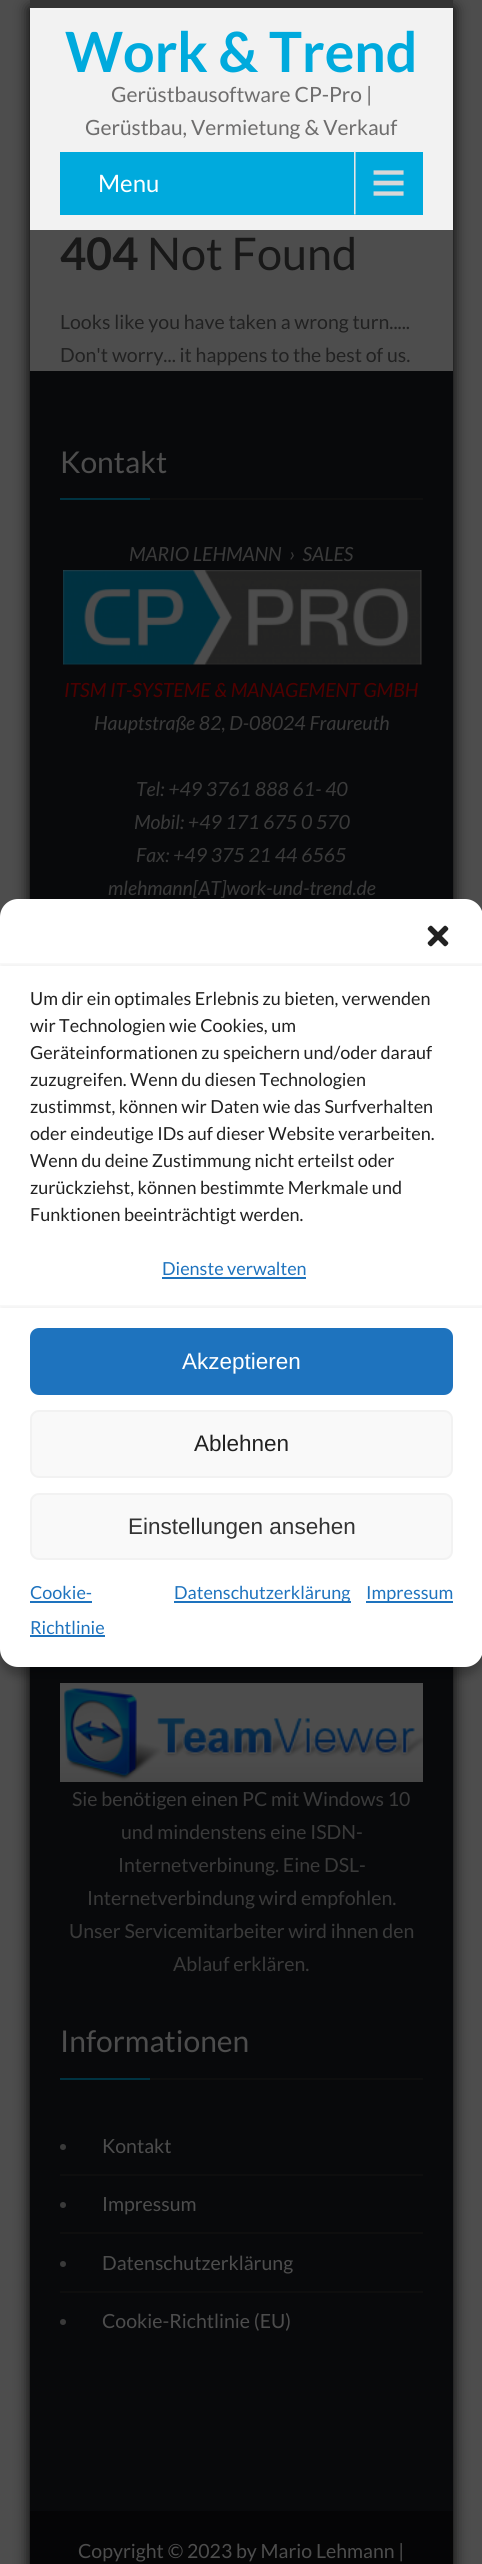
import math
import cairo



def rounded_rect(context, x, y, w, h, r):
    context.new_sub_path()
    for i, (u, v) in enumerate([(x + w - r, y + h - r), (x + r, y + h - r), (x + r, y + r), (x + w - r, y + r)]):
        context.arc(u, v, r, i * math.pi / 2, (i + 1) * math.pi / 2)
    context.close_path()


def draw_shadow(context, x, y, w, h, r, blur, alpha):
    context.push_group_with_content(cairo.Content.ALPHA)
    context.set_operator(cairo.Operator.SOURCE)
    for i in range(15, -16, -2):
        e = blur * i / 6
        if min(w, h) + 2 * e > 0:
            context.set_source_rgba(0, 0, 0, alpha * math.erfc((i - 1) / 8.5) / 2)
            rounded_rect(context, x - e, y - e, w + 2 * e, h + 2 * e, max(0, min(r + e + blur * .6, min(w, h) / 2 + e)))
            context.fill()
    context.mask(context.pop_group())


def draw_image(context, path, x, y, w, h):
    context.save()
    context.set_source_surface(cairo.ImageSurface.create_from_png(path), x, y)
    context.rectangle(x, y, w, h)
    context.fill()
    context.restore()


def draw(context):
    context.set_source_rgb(77 / 255, 77 / 255, 77 / 255)
    context.paint()
    context.save()
    context.set_fill_rule(cairo.FillRule.EVEN_ODD)
    context.new_path()
    context.move_to(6, 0)
    context.line_to(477, 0)
    context.line_to(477, 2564)
    context.line_to(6, 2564)
    context.close_path()
    context.move_to(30, 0)
    context.line_to(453, 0)
    context.line_to(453, 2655)
    context.line_to(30, 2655)
    context.close_path()
    context.clip()
    context.set_source_rgb(0, 0, 0)
    draw_shadow(context, 30, 8, 423, 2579, 0, 7.5, 1)
    context.restore()
    context.set_source_rgb(242 / 255, 242 / 255, 242 / 255)
    context.rectangle(30, 8, 423, 222)
    context.fill()
    context.set_source_rgb(51 / 255, 51 / 255, 51 / 255)
    context.rectangle(30, 0, 423, 8)
    context.fill()
    context.set_source_rgb(0, 170 / 255, 221 / 255)
    context.rectangle(60, 152, 363, 63)
    context.fill()
    draw_image(context, "images/1.png", 354, 151, 50, 64)
    context.set_source_rgb(8 / 255, 9 / 255, 11 / 255)
    context.rectangle(30, 371, 423, 2140)
    context.fill()
    context.set_source_rgb(14 / 255, 14 / 255, 14 / 255)
    context.rectangle(150, 498, 273, 2)
    context.fill()
    context.set_source_rgb(0, 51 / 255, 66 / 255)
    context.rectangle(60, 498, 90, 2)
    context.fill()
    draw_image(context, "images/2.png", 63, 570, 359, 95)
    draw_image(context, "images/3.png", 60, 1683, 363, 99)
    context.set_source_rgb(14 / 255, 14 / 255, 14 / 255)
    context.rectangle(150, 2078, 273, 2)
    context.fill()
    context.set_source_rgb(0, 51 / 255, 66 / 255)
    context.rectangle(60, 2078, 90, 2)
    context.fill()
    context.set_source_rgb(14 / 255, 14 / 255, 14 / 255)
    context.rectangle(60, 2174, 363, 2)
    context.fill()
    context.set_source_rgb(58 / 255, 58 / 255, 58 / 255)
    context.arc(63, 2147, 3, 0, 2 * math.pi)
    context.fill()
    context.set_source_rgb(14 / 255, 14 / 255, 14 / 255)
    context.rectangle(60, 2232, 363, 2)
    context.fill()
    context.set_source_rgb(58 / 255, 58 / 255, 58 / 255)
    context.arc(63, 2205, 3, 0, 2 * math.pi)
    context.fill()
    context.set_source_rgb(14 / 255, 14 / 255, 14 / 255)
    context.rectangle(60, 2291, 363, 2)
    context.fill()
    context.set_source_rgb(58 / 255, 58 / 255, 58 / 255)
    context.arc(63, 2264, 3, 0, 2 * math.pi)
    context.fill()
    context.arc(63, 2322, 3, 0, 2 * math.pi)
    context.fill()
    context.set_source_rgb(5 / 255, 5 / 255, 6 / 255)
    context.rectangle(30, 2511, 423, 53)
    context.fill()
    context.set_source_rgb(0, 0, 0)
    draw_shadow(context, 0, 908, 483, 768, 18, 4.5, 0.23)
    context.set_source_rgb(1, 1, 1)
    rounded_rect(context, 0, 899, 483, 768, 18)
    context.fill()
    draw_image(context, "images/4.png", 427, 925, 22, 22)
    context.save()
    context.rectangle(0, 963, 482, 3)
    context.clip()
    context.set_source_rgb(0, 0, 0)
    draw_shadow(context, 0, 963, 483, 5, 0, 2, 0.05)
    context.restore()
    context.set_source_rgb(30 / 255, 115 / 255, 190 / 255)
    context.rectangle(162, 1277, 144, 2)
    context.fill()
    context.save()
    context.rectangle(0, 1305, 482, 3)
    context.clip()
    context.set_source_rgb(0, 0, 0)
    draw_shadow(context, 0, 1305, 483, 5, 0, 2, 0.05)
    context.restore()
    rounded_rect(context, 31, 1329, 421, 65, 8)
    context.fill_preserve()
    context.stroke()
    context.set_source_rgb(249 / 255, 249 / 255, 249 / 255)
    rounded_rect(context, 31, 1411, 421, 66, 8)
    context.fill_preserve()
    context.set_source_rgb(242 / 255, 242 / 255, 242 / 255)
    context.stroke()
    context.set_source_rgb(249 / 255, 249 / 255, 249 / 255)
    rounded_rect(context, 31, 1494, 421, 65, 8)
    context.fill_preserve()
    context.set_source_rgb(242 / 255, 242 / 255, 242 / 255)
    context.stroke()
    context.set_source_rgb(30 / 255, 115 / 255, 190 / 255)
    context.rectangle(30, 1601, 62, 2)
    context.fill()
    context.rectangle(30, 1635, 75, 2)
    context.fill()
    context.rectangle(174, 1601, 177, 2)
    context.fill()
    context.rectangle(366, 1601, 87, 2)
    context.fill()
    context.select_font_face("Lato", cairo.FontSlant.NORMAL, cairo.FontWeight.BOLD)
    context.set_font_size(55.5)
    context.set_source_rgb(0, 170 / 255, 221 / 255)
    context.move_to(65, 72)
    context.show_text("Work & Trend")
    context.select_font_face("Lato")
    context.set_font_size(21)
    context.set_source_rgb(110 / 255, 109 / 255, 109 / 255)
    context.move_to(111, 102)
    context.show_text("Gerüstbausoftware CP-Pro |")
    context.move_to(85, 135)
    context.show_text("Gerüstbau, Vermietung & Verkauf")
    context.set_font_size(24)
    context.set_source_rgb(1, 1, 1)
    context.move_to(98, 192)
    context.show_text("Menu")
    context.select_font_face("Lato", cairo.FontSlant.NORMAL, cairo.FontWeight.BOLD)
    context.set_font_size(45)
    context.set_source_rgb(24 / 255, 24 / 255, 24 / 255)
    context.move_to(60, 270)
    context.show_text("404")
    context.select_font_face("Lato")
    context.move_to(147, 270)
    context.show_text("Not Found")
    context.set_font_size(19.5)
    context.set_source_rgb(33 / 255, 33 / 255, 33 / 255)
    context.move_to(60, 329)
    context.show_text("Looks like you have taken a wrong turn.....")
    context.move_to(60, 362)
    context.show_text("Don't worry... it happens to the best of us.")
    context.set_font_size(30)
    context.set_source_rgb(77 / 255, 77 / 255, 77 / 255)
    context.move_to(60, 473)
    context.show_text("Kontakt")
    context.select_font_face("Lato", cairo.FontSlant.ITALIC)
    context.set_font_size(19.5)
    context.set_source_rgb(58 / 255, 58 / 255, 58 / 255)
    context.move_to(129, 561)
    context.show_text("MARIO LEHMANN  ›  SALES")
    context.set_source_rgb(77 / 255, 0, 0)
    context.move_to(64, 697)
    context.show_text("ITSM IT-SYSTEME & MANAGEMENT GMBH")
    context.set_source_rgb(58 / 255, 58 / 255, 58 / 255)
    context.move_to(94, 730)
    context.show_text("Hauptstraße 82, D-08024 Fraureuth")
    context.move_to(136, 796)
    context.show_text("Tel: +49 3761 888 61- 40")
    context.move_to(134, 829)
    context.show_text("Mobil: +49 171 675 0 570")
    context.move_to(136, 862)
    context.show_text("Fax: +49 375 21 44 6565")
    context.move_to(108, 895)
    context.show_text("mlehmann[AT]work-und-trend.de")
    context.select_font_face("Lato")
    context.move_to(72, 1806)
    context.show_text("Sie benötigen einen PC mit Windows 10")
    context.move_to(121, 1839)
    context.show_text("und mindenstens eine ISDN-")
    context.move_to(118, 1872)
    context.show_text("Internetverbinung. Eine DSL-")
    context.move_to(87, 1905)
    context.show_text("Internetverbindung wird empfohlen.")
    context.move_to(69, 1938)
    context.show_text("Unser Servicemitarbeiter wird ihnen den")
    context.move_to(173, 1971)
    context.show_text("Ablauf erklären.")
    context.set_font_size(30)
    context.set_source_rgb(77 / 255, 77 / 255, 77 / 255)
    context.move_to(60, 2052)
    context.show_text("Informationen")
    context.set_font_size(19.5)
    context.move_to(102, 2153)
    context.show_text("Kontakt")
    context.move_to(102, 2211)
    context.show_text("Impressum")
    context.move_to(102, 2270)
    context.show_text("Datenschutzerklärung")
    context.move_to(102, 2328)
    context.show_text("Cookie-Richtlinie (EU)")
    context.move_to(78, 2558)
    context.show_text("Copyright © 2023 by Mario Lehmann |")
    context.set_font_size(18)
    context.set_source_rgb(33 / 255, 33 / 255, 33 / 255)
    context.move_to(30, 1005)
    context.show_text("Um dir ein optimales Erlebnis zu bieten, verwenden")
    context.move_to(30, 1032)
    context.show_text("wir Technologien wie Cookies, um")
    context.move_to(30, 1059)
    context.show_text("Geräteinformationen zu speichern und/oder darauf")
    context.move_to(30, 1086)
    context.show_text("zuzugreifen. Wenn du diesen Technologien")
    context.move_to(30, 1113)
    context.show_text("zustimmst, können wir Daten wie das Surfverhalten")
    context.move_to(30, 1140)
    context.show_text("oder eindeutige IDs auf dieser Website verarbeiten.")
    context.move_to(30, 1167)
    context.show_text("Wenn du deine Zustimmung nicht erteilst oder")
    context.move_to(30, 1194)
    context.show_text("zurückziehst, können bestimmte Merkmale und")
    context.move_to(30, 1221)
    context.show_text("Funktionen beeinträchtigt werden.")
    context.set_source_rgb(30 / 255, 115 / 255, 190 / 255)
    context.move_to(162, 1275)
    context.show_text("Dienste verwalten")
    context.select_font_face("Liberation Sans")
    context.set_font_size(22.5)
    context.set_source_rgb(1, 1, 1)
    context.move_to(182, 1369)
    context.show_text("Akzeptieren")
    context.set_source_rgb(33 / 255, 33 / 255, 33 / 255)
    context.move_to(194, 1451)
    context.show_text("Ablehnen")
    context.set_source_rgb(51 / 255, 51 / 255, 51 / 255)
    context.move_to(128, 1534)
    context.show_text("Einstellungen ansehen")
    context.select_font_face("Lato")
    context.set_font_size(18)
    context.set_source_rgb(30 / 255, 115 / 255, 190 / 255)
    context.move_to(30, 1599)
    context.show_text("Cookie-")
    context.move_to(30, 1634)
    context.show_text("Richtlinie")
    context.move_to(174, 1599)
    context.show_text("Datenschutzerklärung")
    context.move_to(366, 1599)
    context.show_text("Impressum")


surface = cairo.ImageSurface(cairo.Format.RGB24, 482, 2564)
context = cairo.Context(surface)
options = cairo.FontOptions()
options.set_hint_metrics(cairo.HintMetrics.OFF)
options.set_hint_style(cairo.HintStyle.NONE)
context.set_font_options(options)
context.set_miter_limit(4)
draw(context)
surface.write_to_png("out.png")
